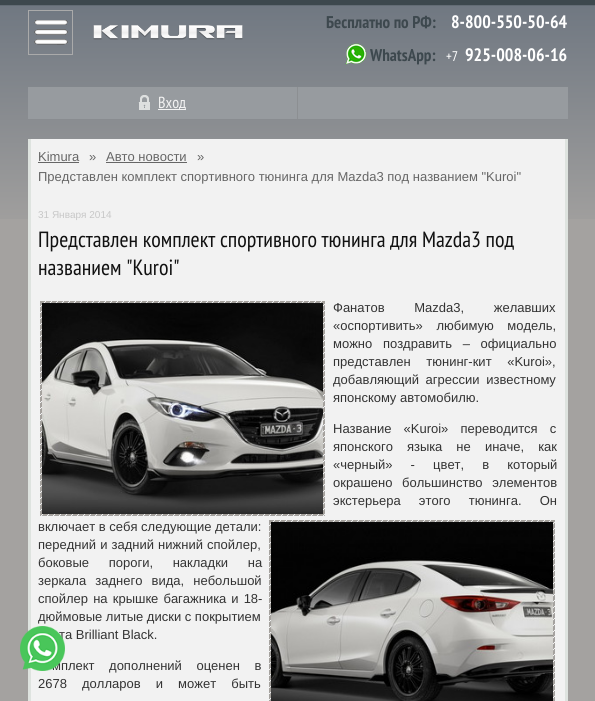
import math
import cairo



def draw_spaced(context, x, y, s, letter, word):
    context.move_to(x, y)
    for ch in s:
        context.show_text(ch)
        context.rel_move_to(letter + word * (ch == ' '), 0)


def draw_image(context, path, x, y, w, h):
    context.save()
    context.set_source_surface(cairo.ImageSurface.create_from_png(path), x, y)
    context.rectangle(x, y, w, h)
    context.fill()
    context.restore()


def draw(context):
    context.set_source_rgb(164 / 255, 162 / 255, 160 / 255)
    context.paint()
    draw_image(context, "images/1.png", 0, 0, 595, 219)
    draw_image(context, "images/2.png", 28, 10, 45, 45)
    draw_image(context, "images/3.png", 93, 25, 150, 15)
    draw_image(context, "images/4.png", 345, 43, 22, 22)
    context.set_source_rgb(151 / 255, 155 / 255, 159 / 255)
    context.rectangle(28, 87, 540, 32)
    context.fill()
    context.set_source_rgb(140 / 255, 143 / 255, 146 / 255)
    context.rectangle(297, 87, 1, 32)
    context.fill()
    draw_image(context, "images/5.png", 138, 95, 12, 15)
    context.set_source_rgb(242 / 255, 242 / 255, 242 / 255)
    context.rectangle(158, 109, 28, 1)
    context.fill()
    context.rectangle(31, 139, 534, 562)
    context.fill()
    context.set_source_rgb(222 / 255, 227 / 255, 223 / 255)
    context.rectangle(565, 139, 3, 562)
    context.fill()
    context.rectangle(28, 139, 3, 562)
    context.fill()
    context.set_source_rgb(102 / 255, 102 / 255, 102 / 255)
    context.rectangle(38, 162, 41, 1)
    context.fill()
    context.rectangle(106, 162, 81, 1)
    context.fill()
    context.set_source_rgb(164 / 255, 162 / 255, 160 / 255)
    context.rectangle(40, 301, 285, 215)
    context.fill()
    draw_image(context, "images/6.png", 40, 301, 285, 215)
    context.rectangle(269, 520, 286, 181)
    context.fill()
    draw_image(context, "images/7.png", 269, 520, 286, 181)
    context.select_font_face("PT Sans Narrow", cairo.FontSlant.NORMAL, cairo.FontWeight.BOLD)
    context.set_font_size(17)
    context.set_source_rgb(61 / 255, 72 / 255, 78 / 255)
    context.move_to(326, 28)
    context.show_text("Бесплатно по РФ:")
    context.set_font_size(18)
    context.set_source_rgb(1, 1, 1)
    context.move_to(451, 28)
    context.show_text("8-800-550-50-64")
    context.set_font_size(17)
    context.set_source_rgb(61 / 255, 72 / 255, 78 / 255)
    context.move_to(370, 61)
    context.show_text("WhatsApp:")
    context.select_font_face("PT Sans Narrow")
    context.set_font_size(14)
    context.set_source_rgb(1, 1, 1)
    context.move_to(446, 61)
    context.show_text("+7")
    context.select_font_face("PT Sans Narrow", cairo.FontSlant.NORMAL, cairo.FontWeight.BOLD)
    context.set_font_size(18)
    context.move_to(465, 61)
    context.show_text("925-008-06-16")
    context.select_font_face("PT Sans Narrow")
    context.set_font_size(16)
    context.set_source_rgb(242 / 255, 242 / 255, 242 / 255)
    context.move_to(158, 108)
    context.show_text("Вход")
    context.select_font_face("Liberation Sans")
    context.set_font_size(13)
    context.set_source_rgb(102 / 255, 102 / 255, 102 / 255)
    context.move_to(38, 161)
    context.show_text("Kimura")
    context.move_to(89, 161)
    context.show_text("»")
    context.move_to(106, 161)
    context.show_text("Авто новости")
    context.move_to(197, 161)
    context.show_text("»")
    context.move_to(38, 181)
    context.show_text("Представлен комплект спортивного тюнинга для Mazda3 под названием \"Kuroi\"")
    context.set_font_size(10)
    context.set_source_rgb(199 / 255, 199 / 255, 199 / 255)
    context.move_to(38, 218)
    context.show_text("31 Января 2014")
    context.select_font_face("PT Sans Narrow")
    context.set_font_size(22)
    context.set_source_rgb(17 / 255, 17 / 255, 17 / 255)
    context.move_to(38, 247)
    context.show_text("Представлен комплект спортивного тюнинга для Mazda3 под")
    context.move_to(38, 275)
    context.show_text("названием \"Kuroi\"")
    context.select_font_face("Liberation Sans")
    context.set_font_size(13)
    context.set_source_rgb(51 / 255, 51 / 255, 51 / 255)
    draw_spaced(context, 333, 312, "Фанатов Mazda3, желавших", 0, 26)
    draw_spaced(context, 333, 330, "«оспортивить» любимую модель,", 0, 10)
    draw_spaced(context, 333, 348, "можно поздравить – официально", 0, 7)
    draw_spaced(context, 333, 366, "представлен тюнинг-кит «Kuroi»,", 0, 12)
    draw_spaced(context, 333, 384, "добавляющий агрессии известному", 0, 3)
    context.move_to(333, 402)
    context.show_text("японскому автомобилю.")
    draw_spaced(context, 333, 433, "Название «Kuroi» переводится с", 0, 8.5)
    draw_spaced(context, 333, 451, "японского языка не иначе, как", 0, 10.5)
    draw_spaced(context, 333, 469, "«черный» - цвет, в который", 0, 14.5)
    draw_spaced(context, 333, 487, "окрашено большинство элементов", 0, 6)
    draw_spaced(context, 333, 505, "экстерьера этого тюнинга. Он", 0, 14.5)
    context.move_to(38, 531)
    context.show_text("включает в себя следующие детали:")
    draw_spaced(context, 38, 549, "передний и задний нижний спойлер,", 0, 0.5)
    draw_spaced(context, 38, 567, "боковые пороги, накладки на", 0, 16)
    draw_spaced(context, 38, 585, "зеркала заднего вида, небольшой", 0, 5.5)
    draw_spaced(context, 38, 603, "спойлер на крышке багажника и 18-", 0, 1.5)
    context.save()
    context.rectangle(38, 149, 519, 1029)
    context.clip()
    context.move_to(38, 621)
    context.show_text("дюймовые литые диски с покрытием")
    context.restore()
    context.move_to(59, 639)
    context.show_text("та Brilliant Black.")
    draw_spaced(context, 52, 670, "мплект дополнений оценен в", 0, 11)
    draw_spaced(context, 38, 688, "2678 долларов и может быть", 0, 11.5)
    draw_image(context, "images/8.png", 20, 626, 45, 45)


surface = cairo.ImageSurface(cairo.Format.RGB24, 595, 701)
context = cairo.Context(surface)
options = cairo.FontOptions()
options.set_hint_metrics(cairo.HintMetrics.OFF)
options.set_hint_style(cairo.HintStyle.NONE)
context.set_font_options(options)
context.set_miter_limit(4)
draw(context)
surface.write_to_png("out.png")
